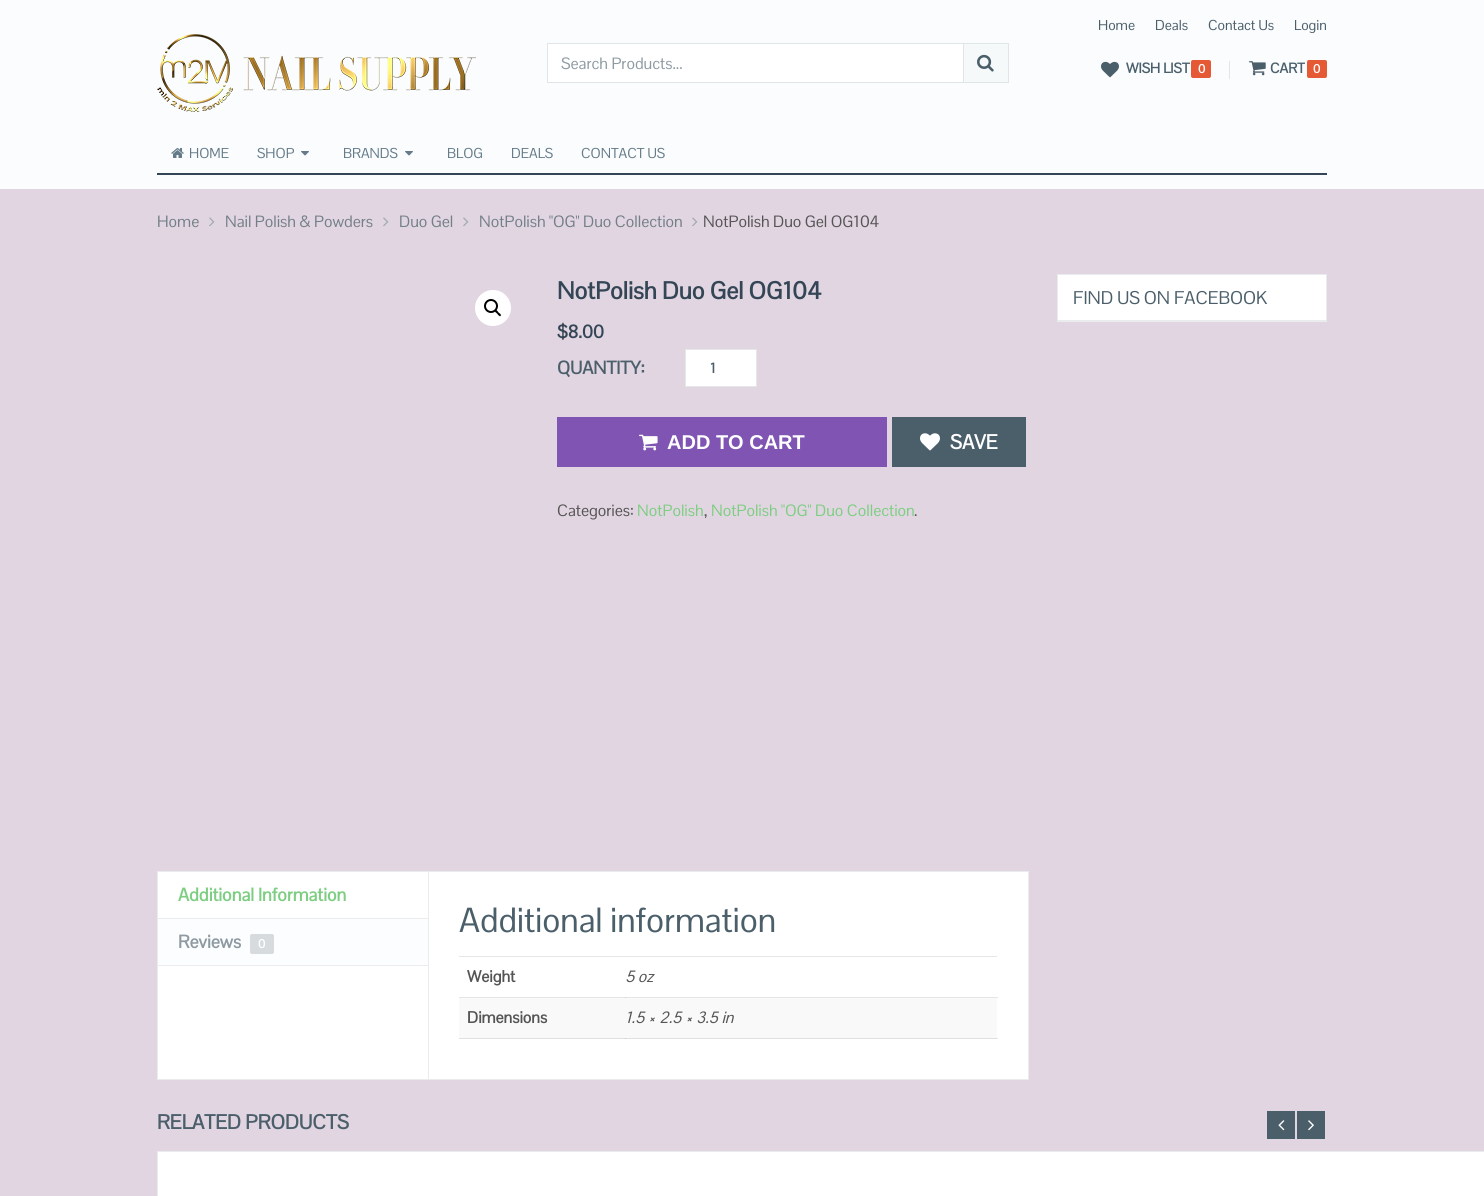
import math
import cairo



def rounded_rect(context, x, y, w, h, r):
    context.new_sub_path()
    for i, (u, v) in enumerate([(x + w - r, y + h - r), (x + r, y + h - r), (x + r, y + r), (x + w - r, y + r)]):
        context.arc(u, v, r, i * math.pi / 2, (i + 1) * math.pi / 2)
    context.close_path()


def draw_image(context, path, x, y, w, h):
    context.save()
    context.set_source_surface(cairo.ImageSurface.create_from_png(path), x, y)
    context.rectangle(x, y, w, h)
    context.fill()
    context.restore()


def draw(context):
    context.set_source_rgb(226 / 255, 213 / 255, 226 / 255)
    context.paint()
    context.set_source_rgb(250 / 255, 252 / 255, 253 / 255)
    context.rectangle(0, 0, 1484, 189)
    context.fill()
    draw_image(context, "images/1.png", 157, 34, 319, 78)
    context.set_source_rgb(1, 1, 1)
    context.rectangle(548, 44, 415, 38)
    context.fill()
    context.set_source_rgb(224 / 255, 229 / 255, 231 / 255)
    context.rectangle(547, 43, 416, 1)
    context.fill()
    context.rectangle(547, 82, 416, 1)
    context.fill()
    context.rectangle(547, 43, 1, 40)
    context.fill()
    context.set_source_rgb(246 / 255, 249 / 255, 250 / 255)
    context.rectangle(963.5, 43.5, 45, 39)
    context.fill_preserve()
    context.set_source_rgb(224 / 255, 229 / 255, 231 / 255)
    context.set_line_width(1)
    context.stroke()
    draw_image(context, "images/2.png", 977, 54, 17, 18)
    context.rectangle(1229, 61, 1, 18)
    context.fill()
    draw_image(context, "images/3.png", 1101, 61, 18, 17)
    context.set_source_rgb(229 / 255, 89 / 255, 52 / 255)
    rounded_rect(context, 1191, 60, 20, 18, 2)
    context.fill()
    draw_image(context, "images/4.png", 1249, 61, 17, 15)
    rounded_rect(context, 1307, 60, 20, 18, 2)
    context.fill()
    context.set_source_rgb(52 / 255, 70 / 255, 85 / 255)
    context.rectangle(157, 173, 1170, 2)
    context.fill()
    draw_image(context, "images/5.png", 171, 148, 13, 10)
    draw_image(context, "images/6.png", 301, 151, 8, 5)
    draw_image(context, "images/6.png", 405, 151, 8, 5)
    draw_image(context, "images/7.png", 209, 217, 6, 10)
    draw_image(context, "images/7.png", 383, 217, 6, 10)
    draw_image(context, "images/7.png", 463, 217, 6, 10)
    draw_image(context, "images/7.png", 692, 217, 6, 10)
    context.set_source_rgb(1, 1, 1)
    context.arc(493, 308, 18, 0, 2 * math.pi)
    context.fill()
    context.arc(491, 306, 6, 0, 2 * math.pi)
    context.set_source_rgb(0, 0, 0)
    context.set_line_width(2)
    context.stroke()
    context.new_path()
    context.move_to(495, 310)
    context.curve_to(496, 309, 498, 311.5, 498.5, 312.5)
    context.curve_to(499, 313, 502, 314.5, 500.5, 316)
    context.curve_to(499.5, 317, 498, 314.5, 497, 313.5)
    context.curve_to(496.5, 313, 494, 311.5, 495, 310)
    context.close_path()
    context.fill()
    context.set_source_rgb(1, 1, 1)
    context.rectangle(685.5, 349.5, 71, 37)
    context.fill_preserve()
    context.set_source_rgb(229 / 255, 230 / 255, 230 / 255)
    context.set_line_width(1)
    context.stroke()
    context.set_source_rgb(127 / 255, 84 / 255, 179 / 255)
    context.rectangle(557, 417, 330, 50)
    context.fill()
    draw_image(context, "images/8.png", 639, 434, 19, 17)
    context.set_source_rgb(75 / 255, 95 / 255, 107 / 255)
    context.rectangle(892, 417, 134, 50)
    context.fill()
    draw_image(context, "images/9.png", 920, 433, 20, 18)
    context.set_source_rgb(1, 1, 1)
    context.rectangle(158, 872, 870, 207)
    context.fill()
    context.set_source_rgb(230 / 255, 230 / 255, 230 / 255)
    context.rectangle(459, 997, 167, 1)
    context.fill()
    context.rectangle(997, 1038, 1, 1)
    context.fill()
    context.rectangle(157.5, 871.5, 871, 208)
    context.set_source_rgb(234 / 255, 235 / 255, 236 / 255)
    context.stroke()
    context.rectangle(158, 918, 270, 1)
    context.fill()
    context.set_source_rgb(252 / 255, 253 / 255, 254 / 255)
    context.rectangle(158, 919, 270, 46)
    context.fill()
    context.set_source_rgb(234 / 255, 235 / 255, 236 / 255)
    context.rectangle(158, 965, 270, 1)
    context.fill()
    context.set_source_rgb(215 / 255, 219 / 255, 221 / 255)
    rounded_rect(context, 250, 934, 24, 20, 2)
    context.fill()
    context.set_source_rgb(234 / 255, 235 / 255, 236 / 255)
    context.rectangle(428, 872, 1, 207)
    context.fill()
    context.set_source_rgb(230 / 255, 230 / 255, 230 / 255)
    context.rectangle(459, 956, 538, 1)
    context.fill()
    context.rectangle(625, 997, 373, 1)
    context.fill()
    context.set_source_rgb(207 / 255, 207 / 255, 207 / 255)
    context.rectangle(625, 997, 1, 1)
    context.fill()
    context.set_source_rgb(249 / 255, 249 / 255, 249 / 255)
    context.rectangle(459, 998, 538, 40)
    context.fill()
    context.set_source_rgb(224 / 255, 224 / 255, 224 / 255)
    context.rectangle(459, 1038, 538, 1)
    context.fill()
    context.set_source_rgb(202 / 255, 202 / 255, 202 / 255)
    context.rectangle(625, 1038, 1, 1)
    context.fill()
    context.set_source_rgb(1, 1, 1)
    context.rectangle(1058, 275, 268, 45)
    context.fill()
    context.rectangle(1057.5, 274.5, 269, 47)
    context.set_source_rgb(234 / 255, 235 / 255, 236 / 255)
    context.stroke()
    context.rectangle(1058, 320, 268, 1)
    context.fill()
    context.set_source_rgb(75 / 255, 95 / 255, 107 / 255)
    context.rectangle(1267, 1111, 28, 28)
    context.fill()
    draw_image(context, "images/10.png", 1278, 1120, 7, 11)
    context.rectangle(1297, 1111, 28, 28)
    context.fill()
    draw_image(context, "images/11.png", 1308, 1120, 6, 11)
    context.set_source_rgb(1, 1, 1)
    context.rectangle(157.5, 1151.5, 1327, 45)
    context.fill_preserve()
    context.set_source_rgb(234 / 255, 235 / 255, 236 / 255)
    context.stroke()
    context.select_font_face("Pontano Sans")
    context.set_font_size(16)
    context.set_source_rgb(142 / 255, 154 / 255, 162 / 255)
    context.move_to(561, 69)
    context.show_text("Search Products...")
    context.set_font_size(14)
    context.set_source_rgb(75 / 255, 95 / 255, 107 / 255)
    context.move_to(1098, 30)
    context.show_text("Home")
    context.move_to(1155, 30)
    context.show_text("Deals")
    context.move_to(1208, 30)
    context.show_text("Contact Us")
    context.move_to(1294, 30)
    context.show_text("Login")
    context.select_font_face("Pontano Sans", cairo.FontSlant.NORMAL, cairo.FontWeight.BOLD)
    context.move_to(1126, 73)
    context.show_text("WISH LIST")
    context.set_font_size(12)
    context.set_source_rgb(1, 1, 1)
    context.move_to(1198, 73)
    context.show_text("0")
    context.set_font_size(14)
    context.set_source_rgb(75 / 255, 95 / 255, 107 / 255)
    context.move_to(1270, 73)
    context.show_text("CART")
    context.set_font_size(12)
    context.set_source_rgb(1, 1, 1)
    context.move_to(1313, 73)
    context.show_text("0")
    context.select_font_face("Pontano Sans")
    context.set_font_size(14)
    context.set_source_rgb(101 / 255, 123 / 255, 137 / 255)
    context.move_to(189, 158)
    context.show_text("HOME")
    context.move_to(257, 158)
    context.show_text("SHOP")
    context.move_to(343, 158)
    context.show_text("BRANDS")
    context.move_to(447, 158)
    context.show_text("BLOG")
    context.move_to(511, 158)
    context.show_text("DEALS")
    context.move_to(581, 158)
    context.show_text("CONTACT US")
    context.set_font_size(16)
    context.set_source_rgb(116 / 255, 128 / 255, 135 / 255)
    context.move_to(157, 227)
    context.show_text("Home")
    context.move_to(225, 227)
    context.show_text("Nail Polish & Powders")
    context.move_to(399, 227)
    context.show_text("Duo Gel")
    context.move_to(479, 227)
    context.show_text("NotPolish \"OG\" Duo Collection")
    context.set_source_rgb(85 / 255, 85 / 255, 85 / 255)
    context.move_to(703, 227)
    context.show_text("NotPolish Duo Gel OG104")
    context.select_font_face("Pontano Sans", cairo.FontSlant.NORMAL, cairo.FontWeight.BOLD)
    context.set_font_size(24)
    context.set_source_rgb(52 / 255, 70 / 255, 85 / 255)
    context.move_to(557, 299)
    context.show_text("NotPolish Duo Gel OG104")
    context.set_font_size(18)
    context.move_to(557, 338)
    context.show_text("$8.00")
    context.set_source_rgb(75 / 255, 95 / 255, 107 / 255)
    context.move_to(557, 374)
    context.show_text("QUANTITY:")
    context.set_font_size(14)
    context.move_to(710, 373)
    context.show_text("1")
    context.select_font_face("Liberation Sans", cairo.FontSlant.NORMAL, cairo.FontWeight.BOLD)
    context.set_font_size(20)
    context.set_source_rgb(1, 1, 1)
    context.move_to(667, 449)
    context.show_text("ADD TO CART")
    context.select_font_face("Pontano Sans", cairo.FontSlant.NORMAL, cairo.FontWeight.BOLD)
    context.move_to(950, 449)
    context.show_text("SAVE")
    context.select_font_face("Pontano Sans")
    context.set_font_size(16)
    context.set_source_rgb(85 / 255, 85 / 255, 85 / 255)
    context.move_to(557, 516)
    context.show_text("Categories:")
    context.set_source_rgb(125 / 255, 206 / 255, 130 / 255)
    context.move_to(637, 516)
    context.show_text("NotPolish")
    context.set_source_rgb(85 / 255, 85 / 255, 85 / 255)
    context.move_to(704, 516)
    context.show_text(",")
    context.set_source_rgb(125 / 255, 206 / 255, 130 / 255)
    context.move_to(711, 516)
    context.show_text("NotPolish \"OG\" Duo Collection")
    context.set_source_rgb(85 / 255, 85 / 255, 85 / 255)
    context.move_to(914, 516)
    context.show_text(".")
    context.select_font_face("Pontano Sans", cairo.FontSlant.NORMAL, cairo.FontWeight.BOLD)
    context.set_font_size(18)
    context.set_source_rgb(125 / 255, 206 / 255, 130 / 255)
    context.move_to(178, 901)
    context.show_text("Additional Information")
    context.set_source_rgb(142 / 255, 154 / 255, 162 / 255)
    context.move_to(178, 948)
    context.show_text("Reviews")
    context.set_font_size(12)
    context.set_source_rgb(1, 1, 1)
    context.move_to(258, 948)
    context.show_text("0")
    context.select_font_face("Pontano Sans")
    context.set_font_size(34)
    context.set_source_rgb(75 / 255, 95 / 255, 107 / 255)
    context.move_to(459, 932)
    context.show_text("Additional information")
    context.select_font_face("Pontano Sans", cairo.FontSlant.NORMAL, cairo.FontWeight.BOLD)
    context.set_font_size(16)
    context.set_source_rgb(85 / 255, 85 / 255, 85 / 255)
    context.move_to(467, 982)
    context.show_text("Weight")
    context.select_font_face("Pontano Sans", cairo.FontSlant.ITALIC)
    context.move_to(625, 982)
    context.show_text("5 oz")
    context.select_font_face("Pontano Sans", cairo.FontSlant.NORMAL, cairo.FontWeight.BOLD)
    context.move_to(467, 1023)
    context.show_text("Dimensions")
    context.select_font_face("Pontano Sans", cairo.FontSlant.ITALIC)
    context.move_to(625, 1023)
    context.show_text("1.5 × 2.5 × 3.5 in")
    context.select_font_face("Pontano Sans")
    context.set_font_size(18)
    context.set_source_rgb(75 / 255, 95 / 255, 107 / 255)
    context.move_to(1073, 304)
    context.show_text("FIND US ON FACEBOOK")
    context.select_font_face("Pontano Sans", cairo.FontSlant.NORMAL, cairo.FontWeight.BOLD)
    context.set_font_size(20)
    context.move_to(157, 1129)
    context.show_text("RELATED PRODUCTS")


surface = cairo.ImageSurface(cairo.Format.RGB24, 1484, 1196)
context = cairo.Context(surface)
options = cairo.FontOptions()
options.set_hint_metrics(cairo.HintMetrics.OFF)
options.set_hint_style(cairo.HintStyle.NONE)
context.set_font_options(options)
context.set_miter_limit(4)
draw(context)
surface.write_to_png("out.png")
